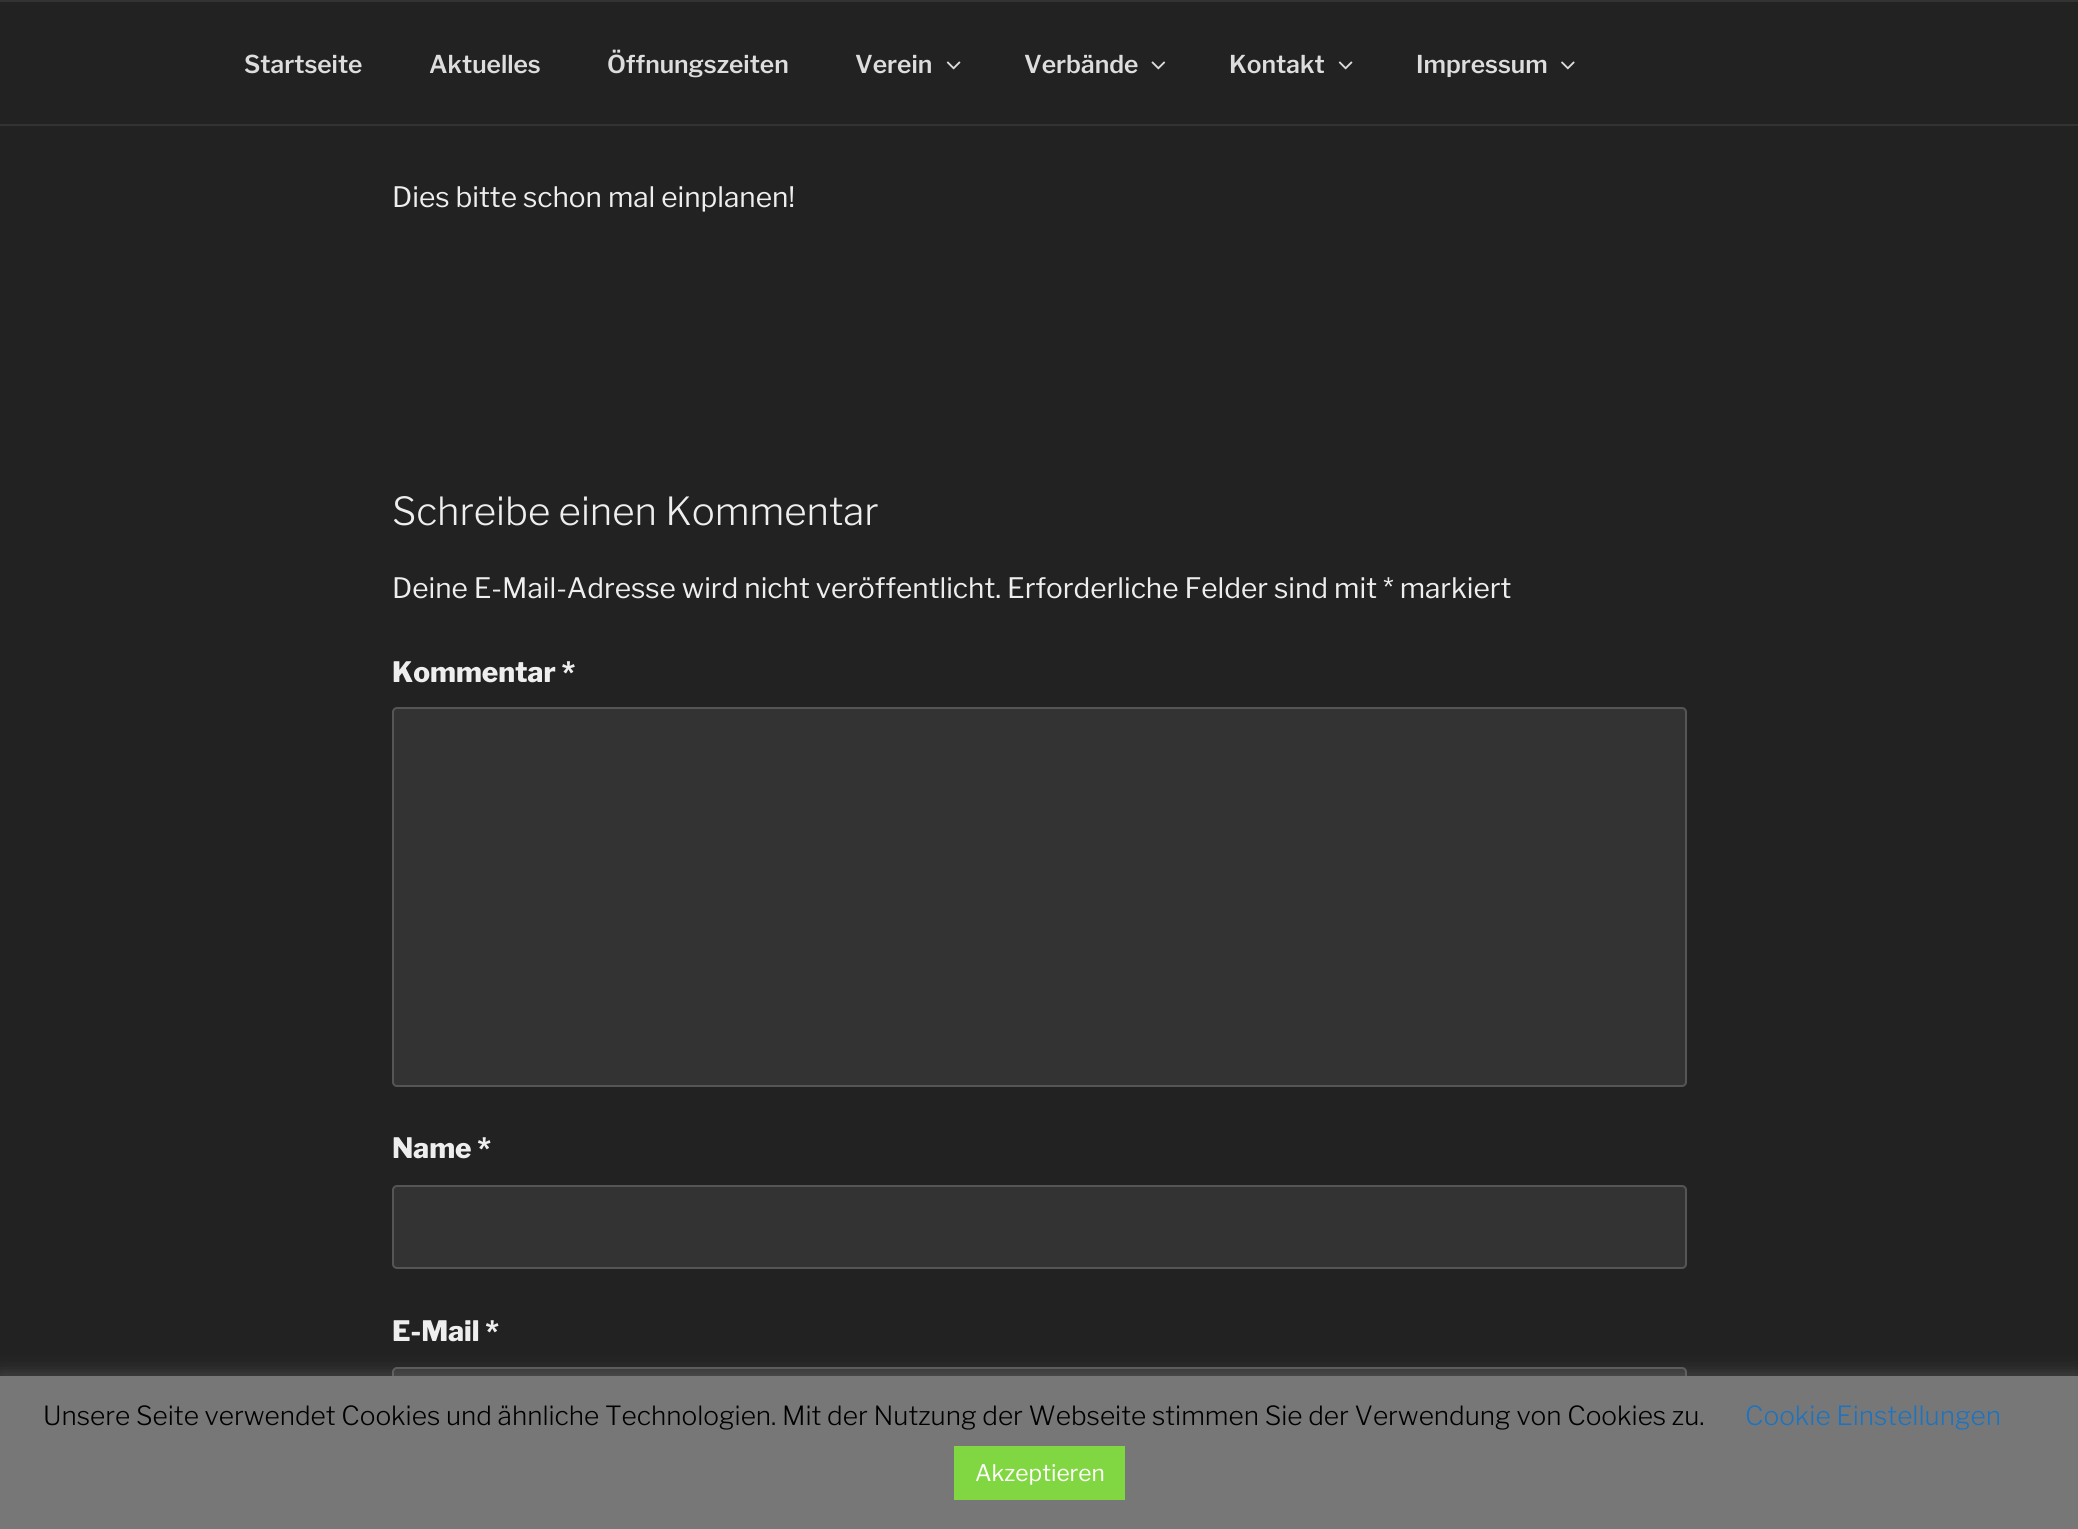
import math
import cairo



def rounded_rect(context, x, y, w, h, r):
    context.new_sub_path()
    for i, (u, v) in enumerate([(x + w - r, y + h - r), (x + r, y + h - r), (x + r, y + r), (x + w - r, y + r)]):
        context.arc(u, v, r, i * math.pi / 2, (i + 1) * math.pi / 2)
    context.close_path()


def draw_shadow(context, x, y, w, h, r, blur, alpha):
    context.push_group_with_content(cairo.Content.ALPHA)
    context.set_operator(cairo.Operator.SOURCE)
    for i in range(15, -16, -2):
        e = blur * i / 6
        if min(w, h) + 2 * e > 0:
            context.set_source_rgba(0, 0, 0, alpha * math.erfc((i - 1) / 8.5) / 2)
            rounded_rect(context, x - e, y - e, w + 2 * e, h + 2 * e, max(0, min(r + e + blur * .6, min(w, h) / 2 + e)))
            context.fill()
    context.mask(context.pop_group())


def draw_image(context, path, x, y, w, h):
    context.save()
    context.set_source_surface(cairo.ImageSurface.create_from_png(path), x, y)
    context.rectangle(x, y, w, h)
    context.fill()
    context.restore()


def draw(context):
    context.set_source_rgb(34 / 255, 34 / 255, 34 / 255)
    context.paint()
    context.set_source_rgb(51 / 255, 51 / 255, 51 / 255)
    context.rectangle(0, 0, 2078, 2)
    context.fill()
    context.rectangle(0, 124, 2078, 2)
    context.fill()
    draw_image(context, "images/1.png", 946, 61, 15, 9)
    draw_image(context, "images/2.png", 1151, 61, 15, 9)
    draw_image(context, "images/1.png", 1338, 61, 15, 9)
    draw_image(context, "images/3.png", 1561, 61, 14, 9)
    rounded_rect(context, 393, 708, 1293, 378, 4)
    context.fill_preserve()
    context.set_source_rgb(85 / 255, 85 / 255, 85 / 255)
    context.stroke()
    context.set_source_rgb(51 / 255, 51 / 255, 51 / 255)
    rounded_rect(context, 393, 1186, 1293, 82, 4)
    context.fill_preserve()
    context.set_source_rgb(85 / 255, 85 / 255, 85 / 255)
    context.stroke()
    context.set_source_rgb(51 / 255, 51 / 255, 51 / 255)
    rounded_rect(context, 393, 1368, 1293, 84, 4)
    context.fill_preserve()
    context.set_source_rgb(85 / 255, 85 / 255, 85 / 255)
    context.stroke()
    context.set_source_rgb(172 / 255, 171 / 255, 171 / 255)
    draw_shadow(context, 0, 1374, 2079, 154, 0, 9, 0.3)
    context.set_source_rgb(119 / 255, 119 / 255, 119 / 255)
    context.rectangle(0, 1376, 2078, 153)
    context.fill()
    context.set_source_rgb(129 / 255, 215 / 255, 66 / 255)
    context.rectangle(954, 1446, 171, 54)
    context.fill()
    context.select_font_face("Libre Franklin SemiBold")
    context.set_font_size(24.5)
    context.set_source_rgb(221 / 255, 221 / 255, 221 / 255)
    context.move_to(244, 73)
    context.show_text("Startseite")
    context.move_to(429, 73)
    context.show_text("Aktuelles")
    context.move_to(607, 73)
    context.show_text("Öffnungszeiten")
    context.move_to(855, 73)
    context.show_text("Verein")
    context.move_to(1024, 73)
    context.show_text("Verbände")
    context.move_to(1229, 73)
    context.show_text("Kontakt")
    context.move_to(1416, 73)
    context.show_text("Impressum")
    context.select_font_face("Libre Franklin")
    context.set_font_size(28)
    context.set_source_rgb(238 / 255, 238 / 255, 238 / 255)
    context.move_to(392, 207)
    context.show_text("Dies bitte schon mal einplanen!")
    context.select_font_face("Libre Franklin Light")
    context.set_font_size(38.5)
    context.move_to(392, 525)
    context.show_text("Schreibe einen Kommentar")
    context.select_font_face("Libre Franklin")
    context.set_font_size(28)
    context.move_to(392, 598)
    context.show_text("Deine E-Mail-Adresse wird nicht veröffentlicht. Erforderliche Felder sind mit * markiert")
    context.select_font_face("Libre Franklin ExtraBold")
    context.move_to(392, 682)
    context.show_text("Kommentar *")
    context.move_to(392, 1158)
    context.show_text("Name *")
    context.move_to(392, 1341)
    context.show_text("E-Mail *")
    context.select_font_face("Libre Franklin Light")
    context.set_font_size(26.25)
    context.set_source_rgb(0, 0, 0)
    context.move_to(43, 1425)
    context.show_text("Unsere Seite verwendet Cookies und ähnliche Technologien. Mit der Nutzung der Webseite stimmen Sie der Verwendung von Cookies zu.")
    context.set_source_rgb(30 / 255, 115 / 255, 190 / 255)
    context.move_to(1745, 1425)
    context.show_text("Cookie Einstellungen")
    context.select_font_face("Libre Franklin")
    context.set_font_size(22.75)
    context.set_source_rgb(1, 1, 1)
    context.move_to(975, 1481)
    context.show_text("Akzeptieren")


surface = cairo.ImageSurface(cairo.Format.RGB24, 2078, 1529)
context = cairo.Context(surface)
options = cairo.FontOptions()
options.set_hint_metrics(cairo.HintMetrics.OFF)
options.set_hint_style(cairo.HintStyle.NONE)
context.set_font_options(options)
context.set_miter_limit(4)
draw(context)
surface.write_to_png("out.png")
